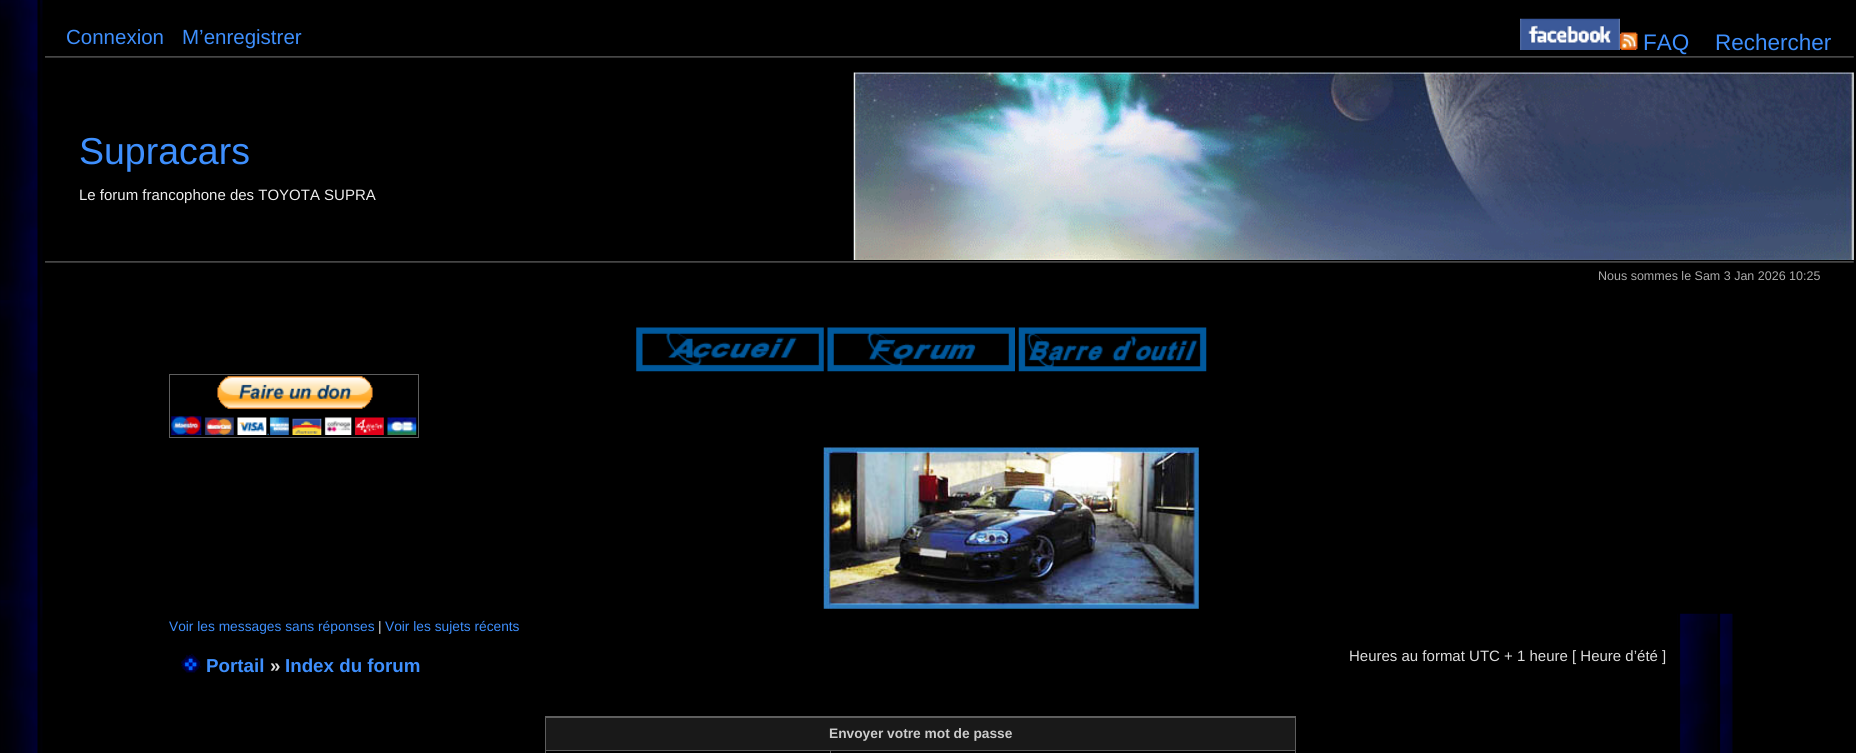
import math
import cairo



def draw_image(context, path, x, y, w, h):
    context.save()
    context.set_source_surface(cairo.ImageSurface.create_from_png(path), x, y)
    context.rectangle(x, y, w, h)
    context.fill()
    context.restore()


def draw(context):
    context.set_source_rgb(0, 0, 0)
    context.paint()
    draw_image(context, "images/1.png", 0, 0, 43, 753)
    draw_image(context, "images/2.png", 45, 56, 1809, 2)
    draw_image(context, "images/3.png", 1520, 18, 100, 32)
    draw_image(context, "images/4.png", 1620, 32, 18, 18)
    draw_image(context, "images/5.png", 853, 72, 1001, 188)
    draw_image(context, "images/2.png", 45, 261, 1809, 2)
    draw_image(context, "images/6.png", 636, 327, 188, 45)
    draw_image(context, "images/7.png", 827, 327, 188, 45)
    draw_image(context, "images/8.png", 1018, 327, 189, 45)
    context.rectangle(169.5, 374.5, 249, 63)
    context.set_source_rgb(94 / 255, 94 / 255, 94 / 255)
    context.set_line_width(1)
    context.stroke()
    draw_image(context, "images/9.png", 171, 376, 246, 59)
    draw_image(context, "images/10.png", 823, 447, 376, 162)
    draw_image(context, "images/11.png", 181, 653, 21, 20)
    context.rectangle(545, 716, 751, 37)
    context.fill()
    context.set_source_rgb(25 / 255, 25 / 255, 25 / 255)
    context.rectangle(546, 718, 749, 32)
    context.fill()
    context.set_source_rgb(0, 0, 0)
    context.rectangle(546, 751, 284, 2)
    context.fill()
    context.rectangle(831, 751, 464, 2)
    context.fill()
    draw_image(context, "images/12.png", 1677, 613, 56, 140)
    context.select_font_face("Liberation Sans")
    context.set_font_size(20.5)
    context.set_source_rgb(62 / 255, 143 / 255, 253 / 255)
    context.move_to(66, 44)
    context.show_text("Connexion")
    context.move_to(182, 44)
    context.show_text("M’enregistrer")
    context.set_font_size(22.5)
    context.move_to(1643, 50)
    context.show_text("FAQ")
    context.move_to(1715, 50)
    context.show_text("Rechercher")
    context.set_font_size(37.5)
    context.move_to(79, 164)
    context.show_text("Supracars")
    context.set_font_size(15)
    context.set_source_rgb(238 / 255, 238 / 255, 238 / 255)
    context.move_to(79, 200)
    context.show_text("Le forum francophone des TOYOTA SUPRA")
    context.set_font_size(12.5)
    context.set_source_rgb(171 / 255, 171 / 255, 171 / 255)
    context.move_to(1598, 280)
    context.show_text("Nous sommes le Sam 3 Jan 2026 10:25")
    context.set_font_size(13.75)
    context.set_source_rgb(62 / 255, 143 / 255, 253 / 255)
    context.move_to(169, 631)
    context.show_text("Voir les messages sans réponses")
    context.set_source_rgb(221 / 255, 221 / 255, 221 / 255)
    context.move_to(378, 631)
    context.show_text("|")
    context.set_source_rgb(62 / 255, 143 / 255, 253 / 255)
    context.move_to(385, 631)
    context.show_text("Voir les sujets récents")
    context.select_font_face("Liberation Sans", cairo.FontSlant.NORMAL, cairo.FontWeight.BOLD)
    context.set_font_size(18.75)
    context.move_to(206, 672)
    context.show_text("Portail")
    context.set_source_rgb(221 / 255, 221 / 255, 221 / 255)
    context.move_to(270, 672)
    context.show_text("»")
    context.set_source_rgb(62 / 255, 143 / 255, 253 / 255)
    context.move_to(285, 672)
    context.show_text("Index du forum")
    context.select_font_face("Liberation Sans")
    context.set_font_size(15)
    context.set_source_rgb(221 / 255, 221 / 255, 221 / 255)
    context.move_to(1349, 661)
    context.show_text("Heures au format UTC + 1 heure [ Heure d’été ]")
    context.select_font_face("Liberation Sans", cairo.FontSlant.NORMAL, cairo.FontWeight.BOLD)
    context.set_font_size(13.75)
    context.set_source_rgb(204 / 255, 204 / 255, 204 / 255)
    context.move_to(829, 738)
    context.show_text("Envoyer votre mot de passe")


surface = cairo.ImageSurface(cairo.Format.RGB24, 1856, 753)
context = cairo.Context(surface)
options = cairo.FontOptions()
options.set_hint_metrics(cairo.HintMetrics.OFF)
options.set_hint_style(cairo.HintStyle.NONE)
context.set_font_options(options)
context.set_miter_limit(4)
draw(context)
surface.write_to_png("out.png")
